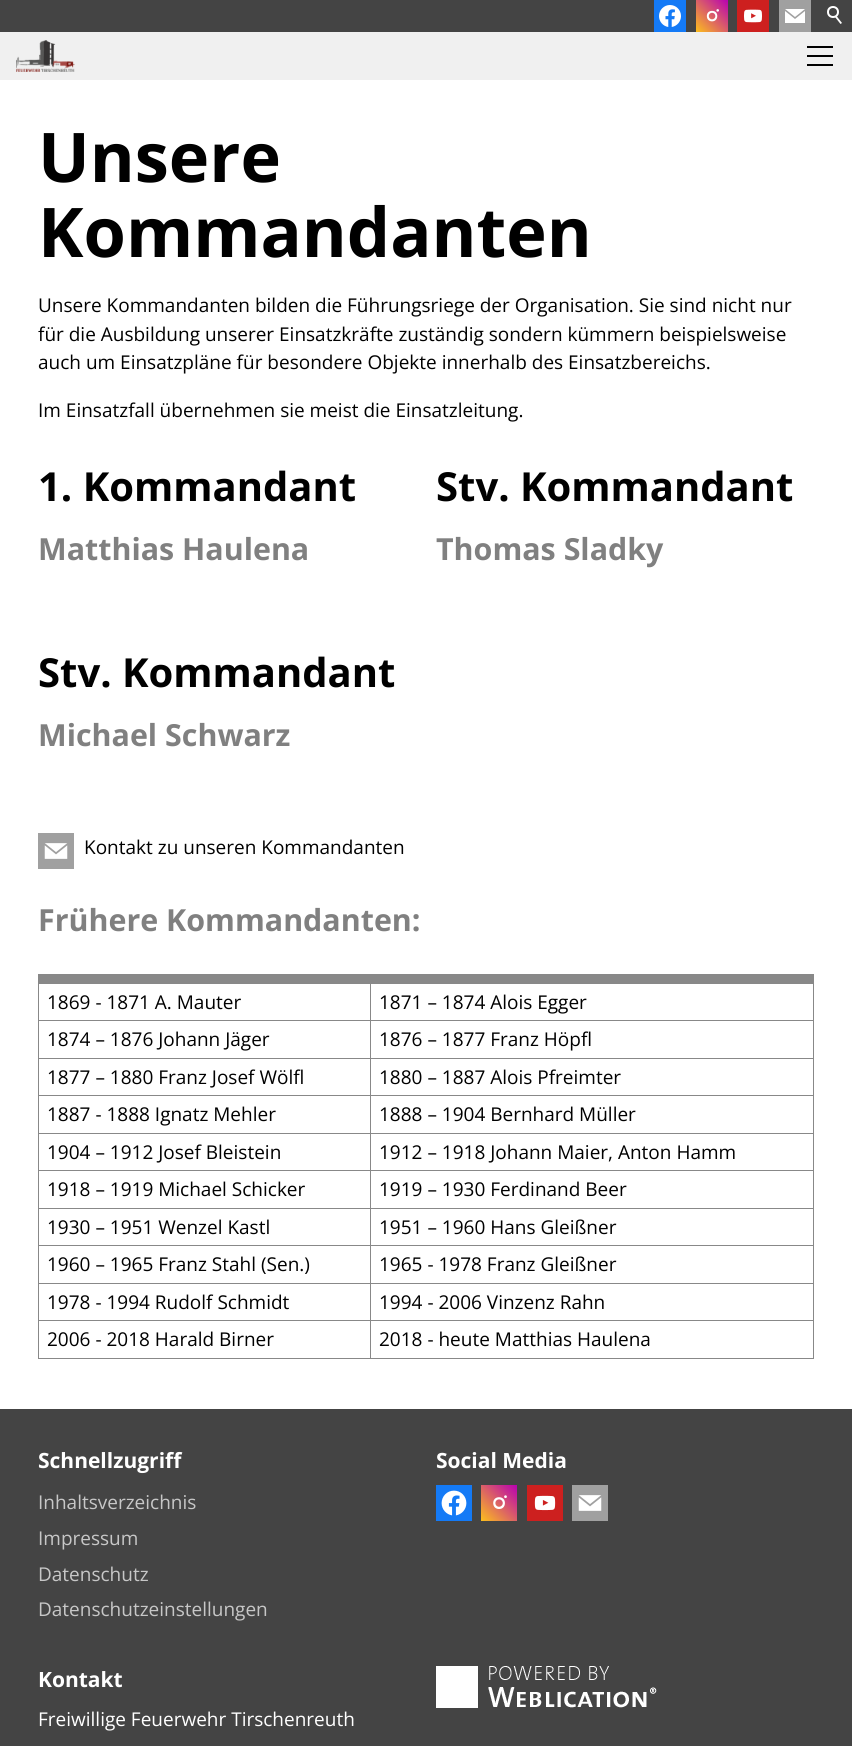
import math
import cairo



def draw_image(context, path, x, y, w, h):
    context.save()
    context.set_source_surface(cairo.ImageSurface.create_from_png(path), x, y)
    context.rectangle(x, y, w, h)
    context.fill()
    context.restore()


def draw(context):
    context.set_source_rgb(1, 1, 1)
    context.paint()
    context.set_source_rgb(240 / 255, 240 / 255, 240 / 255)
    context.rectangle(0, 32, 852, 48)
    context.fill()
    context.set_source_rgb(68 / 255, 68 / 255, 68 / 255)
    context.rectangle(0, 0, 852, 32)
    context.fill()
    context.set_source_rgb(20 / 255, 122 / 255, 246 / 255)
    context.rectangle(654, 0, 32, 32)
    context.fill()
    draw_image(context, "images/1.png", 659, 5, 22, 22)
    gradient = cairo.LinearGradient(696, 32, 728, 0)
    gradient.add_color_stop_rgba(0, 253 / 255, 191 / 255, 28 / 255, 1)
    gradient.add_color_stop_rgba(1, 184 / 255, 0, 178 / 255, 1)
    context.set_source(gradient)
    context.rectangle(696, 0, 32, 32)
    context.fill()
    draw_image(context, "images/2.png", 706, 9, 13, 13)
    context.set_source_rgb(205 / 255, 32 / 255, 31 / 255)
    context.rectangle(737, 0, 32, 32)
    context.fill()
    draw_image(context, "images/3.png", 744, 9, 18, 14)
    context.set_source_rgb(160 / 255, 160 / 255, 160 / 255)
    context.rectangle(779, 0, 32, 32)
    context.fill()
    draw_image(context, "images/4.png", 785, 9, 20, 14)
    context.arc(833, 12, 5, 0, 2 * math.pi)
    context.set_source_rgb(1, 1, 1)
    context.stroke()
    context.new_path()
    context.move_to(836.5, 16)
    context.line_to(842, 23)
    context.line_to(840.5, 24)
    context.line_to(835, 17)
    context.close_path()
    context.fill()
    draw_image(context, "images/5.png", 16, 40, 59, 32)
    context.set_source_rgb(0, 0, 0)
    context.rectangle(807, 46, 26, 2)
    context.fill()
    context.rectangle(807, 55, 26, 2)
    context.fill()
    context.rectangle(807, 64, 26, 2)
    context.fill()
    context.set_source_rgb(160 / 255, 160 / 255, 160 / 255)
    context.rectangle(38, 833, 36, 36)
    context.fill()
    draw_image(context, "images/6.png", 44, 843, 24, 16)
    context.set_source_rgb(136 / 255, 136 / 255, 136 / 255)
    context.rectangle(38, 974, 1, 385)
    context.fill()
    context.rectangle(39, 974, 775, 9)
    context.fill()
    context.rectangle(813, 983, 1, 376)
    context.fill()
    context.rectangle(370, 1358, 444, 1)
    context.fill()
    context.rectangle(370, 1320, 1, 39)
    context.fill()
    context.rectangle(370, 1320, 444, 1)
    context.fill()
    context.rectangle(370, 1283, 1, 38)
    context.fill()
    context.rectangle(370, 1283, 444, 1)
    context.fill()
    context.rectangle(370, 1245, 1, 39)
    context.fill()
    context.rectangle(370, 1245, 444, 1)
    context.fill()
    context.rectangle(370, 1208, 1, 38)
    context.fill()
    context.rectangle(370, 1208, 444, 1)
    context.fill()
    context.rectangle(370, 1170, 1, 39)
    context.fill()
    context.rectangle(370, 1170, 444, 1)
    context.fill()
    context.rectangle(370, 1133, 1, 38)
    context.fill()
    context.rectangle(370, 1133, 444, 1)
    context.fill()
    context.rectangle(370, 1095, 1, 39)
    context.fill()
    context.rectangle(370, 1095, 444, 1)
    context.fill()
    context.rectangle(370, 1058, 1, 38)
    context.fill()
    context.rectangle(370, 1058, 444, 1)
    context.fill()
    context.rectangle(370, 1020, 1, 39)
    context.fill()
    context.rectangle(370, 1020, 444, 1)
    context.fill()
    context.rectangle(370, 983, 1, 38)
    context.fill()
    context.rectangle(38, 983, 776, 1)
    context.fill()
    context.rectangle(38, 1020, 333, 1)
    context.fill()
    context.rectangle(38, 1058, 333, 1)
    context.fill()
    context.rectangle(38, 1095, 333, 1)
    context.fill()
    context.rectangle(38, 1133, 333, 1)
    context.fill()
    context.rectangle(38, 1170, 333, 1)
    context.fill()
    context.rectangle(38, 1208, 333, 1)
    context.fill()
    context.rectangle(38, 1245, 333, 1)
    context.fill()
    context.rectangle(38, 1283, 333, 1)
    context.fill()
    context.rectangle(38, 1320, 333, 1)
    context.fill()
    context.rectangle(38, 1358, 333, 1)
    context.fill()
    context.set_source_rgb(68 / 255, 68 / 255, 68 / 255)
    context.rectangle(0, 1409, 852, 337)
    context.fill()
    context.set_source_rgb(20 / 255, 122 / 255, 246 / 255)
    context.rectangle(436, 1485, 36, 36)
    context.fill()
    draw_image(context, "images/7.png", 441, 1490, 26, 26)
    gradient = cairo.LinearGradient(481, 1521, 517, 1485)
    gradient.add_color_stop_rgba(0, 253 / 255, 191 / 255, 28 / 255, 1)
    gradient.add_color_stop_rgba(1, 184 / 255, 0, 178 / 255, 1)
    context.set_source(gradient)
    context.rectangle(481, 1485, 36, 36)
    context.fill()
    draw_image(context, "images/8.png", 493, 1495, 14, 14)
    context.set_source_rgb(205 / 255, 32 / 255, 31 / 255)
    context.rectangle(527, 1485, 36, 36)
    context.fill()
    draw_image(context, "images/9.png", 534, 1495, 22, 16)
    context.set_source_rgb(160 / 255, 160 / 255, 160 / 255)
    context.rectangle(572, 1485, 36, 36)
    context.fill()
    draw_image(context, "images/6.png", 578, 1495, 24, 16)
    draw_image(context, "images/10.png", 436, 1666, 221, 42)
    context.select_font_face("Open Sans", cairo.FontSlant.NORMAL, cairo.FontWeight.BOLD)
    context.set_font_size(68.5)
    context.set_source_rgb(0, 0, 0)
    context.move_to(38, 182)
    context.show_text("Unsere")
    context.move_to(38, 257)
    context.show_text("Kommandanten")
    context.select_font_face("Open Sans")
    context.set_font_size(19)
    context.move_to(38, 312)
    context.show_text("Unsere Kommandanten bilden die Führungsriege der Organisation. Sie sind nicht nur")
    context.move_to(38, 341)
    context.show_text("für die Ausbildung unserer Einsatzkräfte zuständig sondern kümmern beispielsweise")
    context.move_to(38, 369)
    context.show_text("auch um Einsatzpläne für besondere Objekte innerhalb des Einsatzbereichs.")
    context.move_to(38, 417)
    context.show_text("Im Einsatzfall übernehmen sie meist die Einsatzleitung.")
    context.select_font_face("Open Sans", cairo.FontSlant.NORMAL, cairo.FontWeight.BOLD)
    context.set_font_size(40)
    context.move_to(38, 501)
    context.show_text("1. Kommandant")
    context.set_font_size(30.4)
    context.set_source_rgb(128 / 255, 128 / 255, 128 / 255)
    context.move_to(38, 560)
    context.show_text("Matthias Haulena")
    context.set_font_size(40)
    context.set_source_rgb(0, 0, 0)
    context.move_to(436, 501)
    context.show_text("Stv. Kommandant")
    context.set_font_size(30.4)
    context.set_source_rgb(128 / 255, 128 / 255, 128 / 255)
    context.move_to(436, 560)
    context.show_text("Thomas Sladky")
    context.set_font_size(40)
    context.set_source_rgb(0, 0, 0)
    context.move_to(38, 687)
    context.show_text("Stv. Kommandant")
    context.set_font_size(30.4)
    context.set_source_rgb(128 / 255, 128 / 255, 128 / 255)
    context.move_to(38, 746)
    context.show_text("Michael Schwarz")
    context.select_font_face("Open Sans")
    context.set_font_size(19)
    context.set_source_rgb(0, 0, 0)
    context.move_to(84, 854)
    context.show_text("Kontakt zu unseren Kommandanten")
    context.select_font_face("Open Sans", cairo.FontSlant.NORMAL, cairo.FontWeight.BOLD)
    context.set_font_size(30.4)
    context.set_source_rgb(128 / 255, 128 / 255, 128 / 255)
    context.move_to(38, 931)
    context.show_text("Frühere Kommandanten:")
    context.select_font_face("Open Sans")
    context.set_font_size(19)
    context.set_source_rgb(0, 0, 0)
    context.move_to(47, 1009)
    context.show_text("1869 - 1871 A. Mauter")
    context.move_to(379, 1009)
    context.show_text("1871 – 1874 Alois Egger")
    context.move_to(47, 1046)
    context.show_text("1874 – 1876 Johann Jäger")
    context.move_to(379, 1046)
    context.show_text("1876 – 1877 Franz Höpfl")
    context.move_to(47, 1084)
    context.show_text("1877 – 1880 Franz Josef Wölfl")
    context.move_to(379, 1084)
    context.show_text("1880 – 1887 Alois Pfreimter")
    context.move_to(47, 1121)
    context.show_text("1887 - 1888 Ignatz Mehler")
    context.move_to(379, 1121)
    context.show_text("1888 – 1904 Bernhard Müller")
    context.move_to(47, 1159)
    context.show_text("1904 – 1912 Josef Bleistein")
    context.move_to(379, 1159)
    context.show_text("1912 – 1918 Johann Maier, Anton Hamm")
    context.move_to(47, 1196)
    context.show_text("1918 – 1919 Michael Schicker")
    context.move_to(379, 1196)
    context.show_text("1919 – 1930 Ferdinand Beer")
    context.move_to(47, 1234)
    context.show_text("1930 – 1951 Wenzel Kastl")
    context.move_to(379, 1234)
    context.show_text("1951 – 1960 Hans Gleißner")
    context.move_to(47, 1271)
    context.show_text("1960 – 1965 Franz Stahl (Sen.)")
    context.move_to(379, 1271)
    context.show_text("1965 - 1978 Franz Gleißner")
    context.move_to(47, 1309)
    context.show_text("1978 - 1994 Rudolf Schmidt")
    context.move_to(379, 1309)
    context.show_text("1994 - 2006 Vinzenz Rahn")
    context.move_to(47, 1346)
    context.show_text("2006 - 2018 Harald Birner")
    context.move_to(379, 1346)
    context.show_text("2018 - heute Matthias Haulena")
    context.select_font_face("Open Sans", cairo.FontSlant.NORMAL, cairo.FontWeight.BOLD)
    context.set_font_size(21)
    context.set_source_rgb(1, 1, 1)
    context.move_to(38, 1468)
    context.show_text("Schnellzugriff")
    context.select_font_face("Open Sans")
    context.set_font_size(19)
    context.set_source_rgb(199 / 255, 199 / 255, 199 / 255)
    context.move_to(38, 1509)
    context.show_text("Inhaltsverzeichnis")
    context.move_to(38, 1545)
    context.show_text("Impressum")
    context.move_to(38, 1581)
    context.show_text("Datenschutz")
    context.move_to(38, 1616)
    context.show_text("Datenschutzeinstellungen")
    context.select_font_face("Open Sans", cairo.FontSlant.NORMAL, cairo.FontWeight.BOLD)
    context.set_font_size(21)
    context.set_source_rgb(1, 1, 1)
    context.move_to(436, 1468)
    context.show_text("Social Media")
    context.move_to(38, 1687)
    context.show_text("Kontakt")
    context.select_font_face("Open Sans")
    context.set_font_size(19)
    context.move_to(38, 1726)
    context.show_text("Freiwillige Feuerwehr Tirschenreuth")


surface = cairo.ImageSurface(cairo.Format.RGB24, 852, 1746)
context = cairo.Context(surface)
options = cairo.FontOptions()
options.set_hint_metrics(cairo.HintMetrics.OFF)
options.set_hint_style(cairo.HintStyle.NONE)
context.set_font_options(options)
context.set_miter_limit(4)
draw(context)
surface.write_to_png("out.png")
